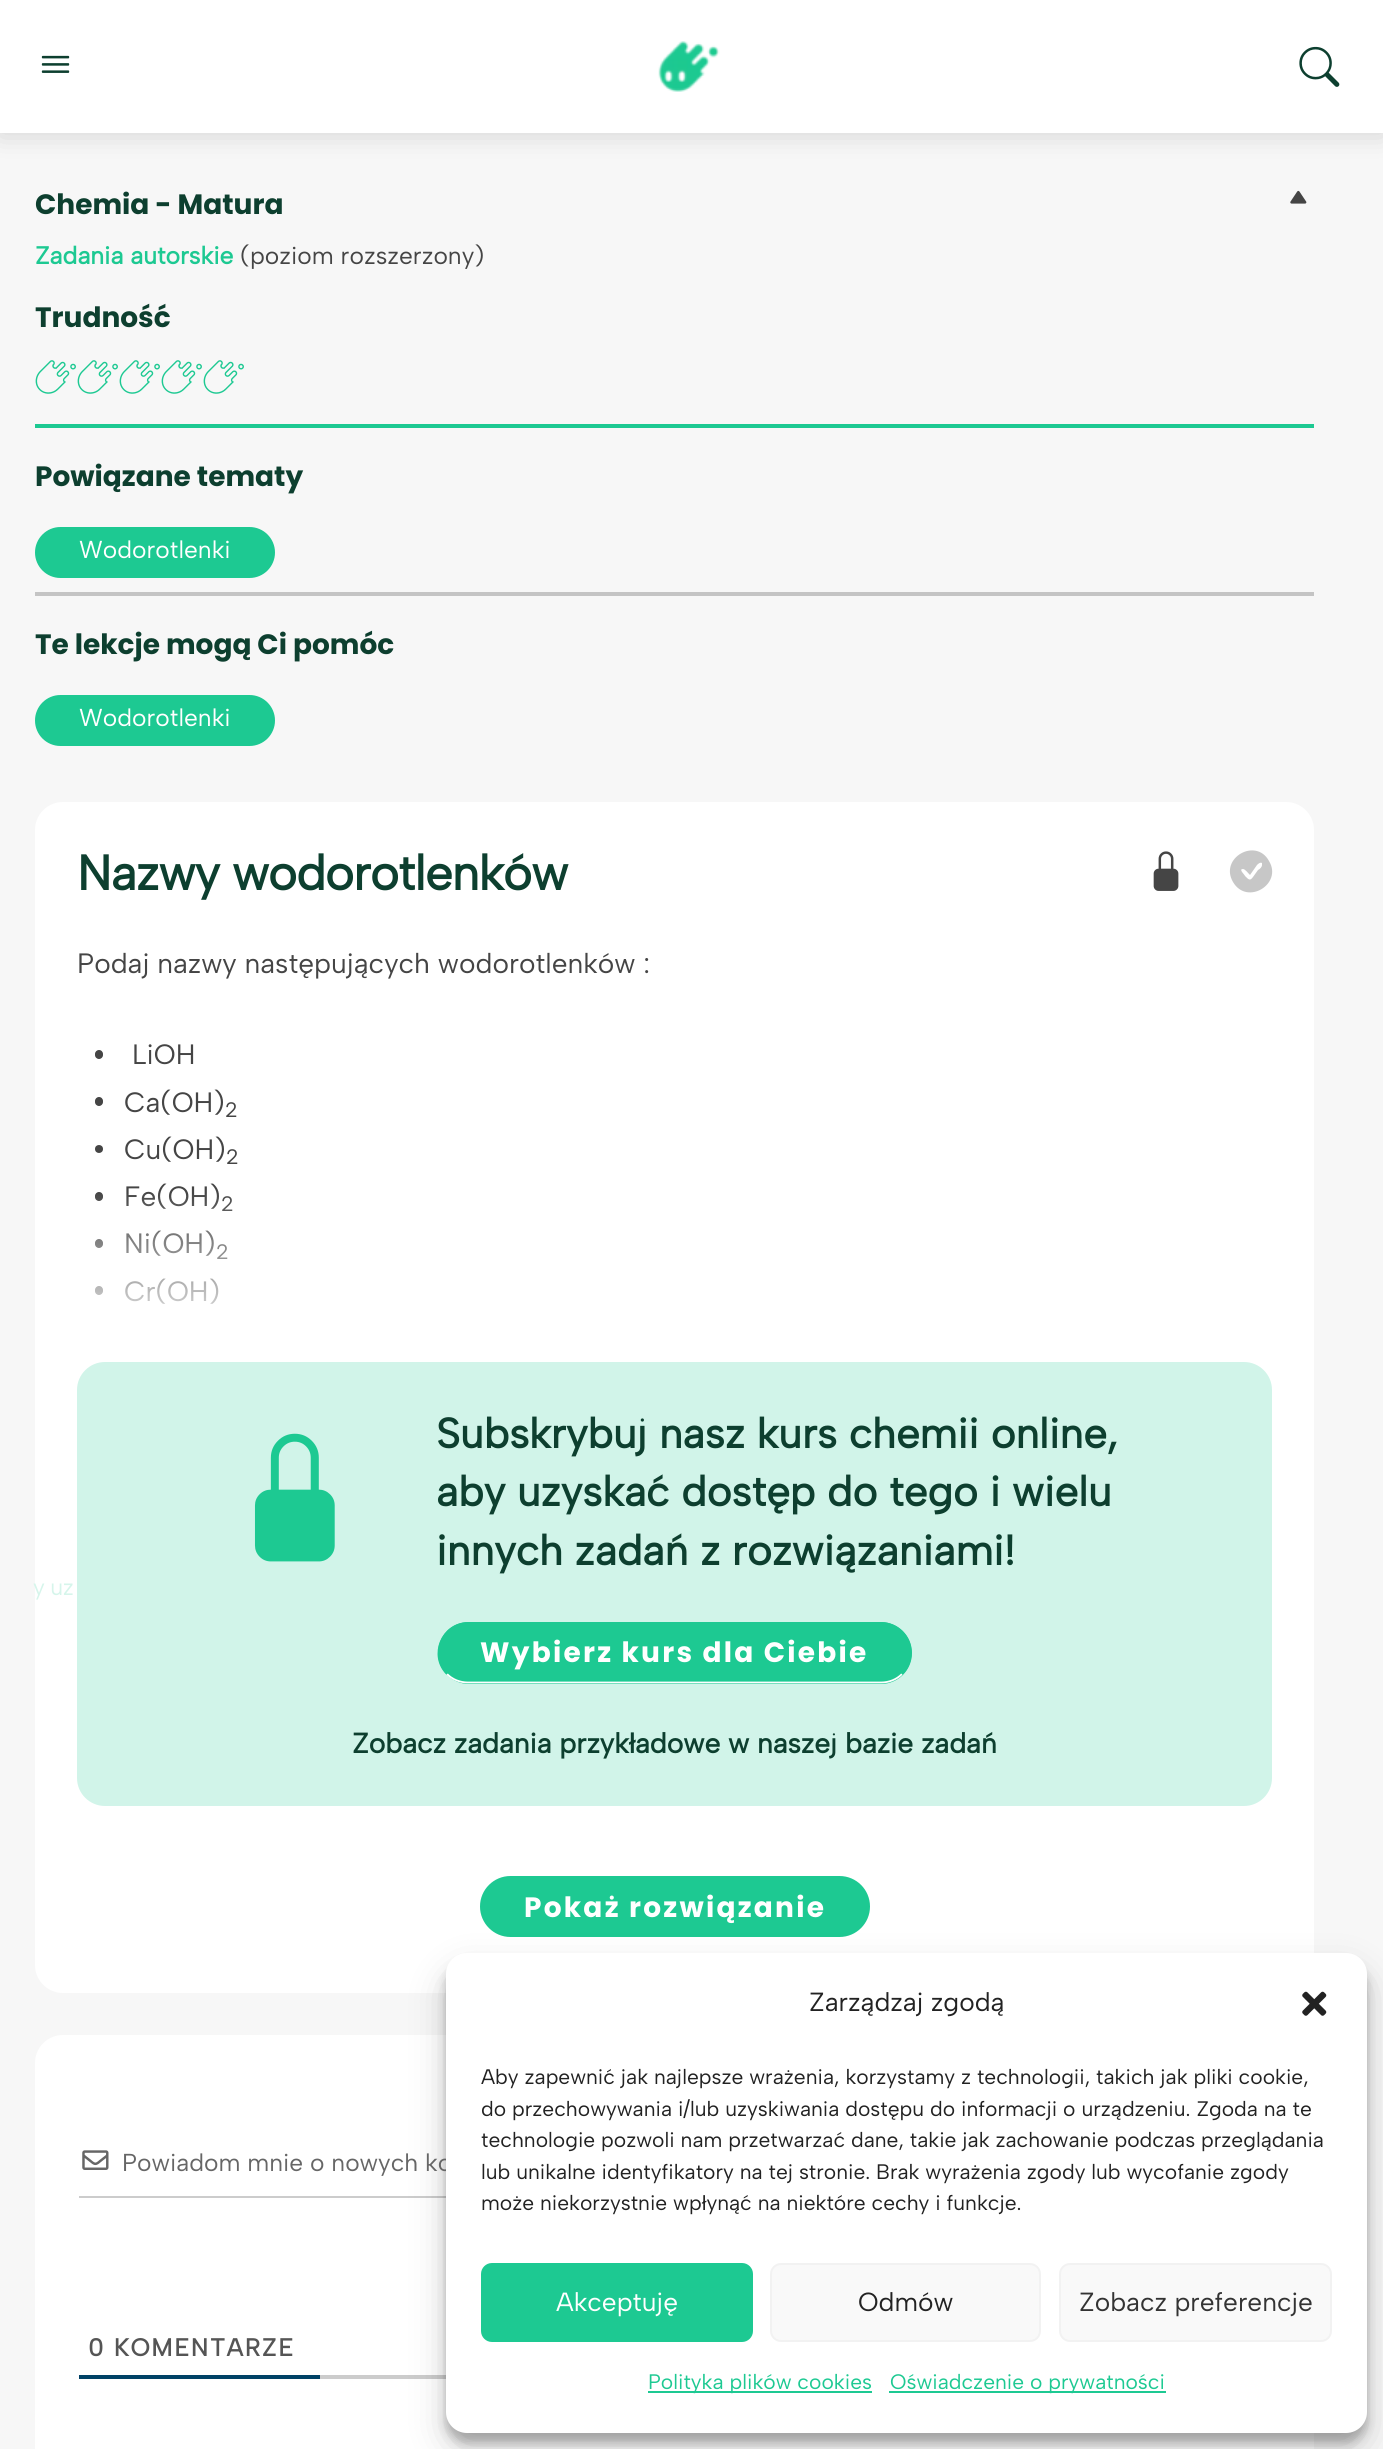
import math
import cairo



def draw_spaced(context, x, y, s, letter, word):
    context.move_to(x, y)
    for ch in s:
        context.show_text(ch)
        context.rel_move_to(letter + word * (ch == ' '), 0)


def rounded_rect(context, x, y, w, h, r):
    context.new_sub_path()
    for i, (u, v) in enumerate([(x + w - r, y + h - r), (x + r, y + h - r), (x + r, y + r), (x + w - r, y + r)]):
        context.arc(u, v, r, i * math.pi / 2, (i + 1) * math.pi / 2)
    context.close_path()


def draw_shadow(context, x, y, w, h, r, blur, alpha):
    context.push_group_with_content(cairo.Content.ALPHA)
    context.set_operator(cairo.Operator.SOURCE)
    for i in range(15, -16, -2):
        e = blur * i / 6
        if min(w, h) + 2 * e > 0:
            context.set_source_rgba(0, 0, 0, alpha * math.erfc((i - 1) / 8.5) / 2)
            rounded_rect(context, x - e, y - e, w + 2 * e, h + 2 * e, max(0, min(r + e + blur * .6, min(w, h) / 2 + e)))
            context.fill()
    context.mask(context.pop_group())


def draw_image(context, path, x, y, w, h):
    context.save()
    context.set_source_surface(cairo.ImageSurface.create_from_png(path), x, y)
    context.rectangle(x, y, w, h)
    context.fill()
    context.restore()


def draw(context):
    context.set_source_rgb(247 / 255, 247 / 255, 247 / 255)
    context.paint()
    context.set_source_rgb(0, 0, 0)
    draw_shadow(context, 0, 0, 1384, 133, 0, 14, 0.16)
    context.set_source_rgb(1, 1, 1)
    context.rectangle(0, 0, 1383, 133)
    context.fill()
    draw_image(context, "images/1.png", 41, 55, 29, 18)
    draw_image(context, "images/2.png", 658, 41, 62, 51)
    draw_image(context, "images/3.png", 1299, 46, 41, 41)
    draw_image(context, "images/4.png", 1290, 190, 17, 14)
    draw_image(context, "images/5.png", 35, 360, 41, 34)
    draw_image(context, "images/5.png", 77, 360, 41, 34)
    draw_image(context, "images/5.png", 119, 360, 41, 34)
    draw_image(context, "images/5.png", 161, 360, 41, 34)
    draw_image(context, "images/5.png", 203, 360, 41, 34)
    context.set_source_rgb(29 / 255, 201 / 255, 146 / 255)
    context.rectangle(35, 424, 1279, 4)
    context.fill()
    rounded_rect(context, 36, 528, 238, 49, 24.5)
    context.fill_preserve()
    context.stroke()
    context.set_source_rgb(196 / 255, 196 / 255, 196 / 255)
    context.rectangle(35, 592, 1279, 4)
    context.fill()
    context.set_source_rgb(29 / 255, 201 / 255, 146 / 255)
    rounded_rect(context, 36, 696, 238, 49, 24.5)
    context.fill_preserve()
    context.stroke()
    context.set_source_rgb(1, 1, 1)
    rounded_rect(context, 35, 802, 1279, 1191, 28)
    context.fill()
    draw_image(context, "images/6.png", 1153, 851, 26, 40)
    context.set_source_rgb(199 / 255, 199 / 255, 199 / 255)
    context.new_path()
    context.move_to(1269, 861)
    context.curve_to(1283, 884, 1247, 906, 1233, 882)
    context.curve_to(1219, 858, 1256, 837, 1269, 861)
    context.close_path()
    context.move_to(1262, 865)
    context.line_to(1262, 863)
    context.curve_to(1260, 862, 1258, 864, 1257, 865)
    context.line_to(1250, 875)
    context.curve_to(1248, 873, 1245, 869, 1243, 869)
    context.curve_to(1238, 869, 1245, 875, 1245, 876)
    context.curve_to(1249, 880, 1250, 881, 1253, 877)
    context.line_to(1258, 870)
    context.curve_to(1260, 869, 1262, 867, 1262, 865)
    context.close_path()
    context.fill()
    context.set_source_rgb(69 / 255, 69 / 255, 69 / 255)
    rounded_rect(context, 95, 1050, 8, 9, 4)
    context.fill()
    rounded_rect(context, 95, 1097, 8, 9, 4)
    context.fill()
    context.arc(99, 1149, 4, 0, 2 * math.pi)
    context.fill()
    rounded_rect(context, 95, 1192, 8, 9, 4)
    context.fill()
    rounded_rect(context, 95, 1239, 8, 9, 4)
    context.fill()
    rounded_rect(context, 95, 1286, 8, 9, 4)
    context.fill()
    context.set_source_rgb(209 / 255, 244 / 255, 233 / 255)
    rounded_rect(context, 77, 1362, 1195, 444, 28)
    context.fill()
    draw_image(context, "images/7.png", 254, 1433, 81, 129)
    context.set_source_rgb(29 / 255, 201 / 255, 146 / 255)
    rounded_rect(context, 438, 1622, 474, 62, 31)
    context.fill()
    context.new_path()
    context.move_to(902, 1674)
    context.curve_to(896.5, 1679.5, 889, 1682.5, 881, 1682.5)
    context.line_to(468, 1682.5)
    context.curve_to(460, 1682.5, 452.5, 1679.5, 447, 1674)
    context.set_source_rgb(1, 1, 1)
    context.set_line_width(1.8)
    context.stroke()
    context.new_path()
    context.move_to(447, 1674)
    context.curve_to(428.5, 1655.5, 442, 1623, 468, 1623)
    context.line_to(881, 1623)
    context.curve_to(893, 1623, 904, 1630.5, 908.5, 1641.5)
    context.curve_to(913, 1652.5, 910.5, 1665.5, 902, 1674)
    context.set_source_rgb(29 / 255, 201 / 255, 146 / 255)
    context.stroke()
    rounded_rect(context, 481, 1877, 388, 59, 29.5)
    context.fill_preserve()
    context.set_line_width(2)
    context.stroke()
    context.set_source_rgb(1, 1, 1)
    rounded_rect(context, 35, 2035, 1279, 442, 28)
    context.fill()
    context.set_source_rgb(204 / 255, 204 / 255, 204 / 255)
    context.rectangle(79, 2196, 367, 2)
    context.fill()
    draw_image(context, "images/8.png", 82, 2150, 27, 20)
    context.rectangle(320, 2375, 126, 4)
    context.fill()
    context.set_source_rgb(0, 66 / 255, 102 / 255)
    context.rectangle(79, 2375, 241, 4)
    context.fill()
    context.set_source_rgb(0, 0, 0)
    draw_shadow(context, 446, 1964, 921, 479, 21, 5, 0.23)
    draw_shadow(context, 446, 1971, 921, 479, 21, 17.5, 0.19)
    context.select_font_face("Poppins", cairo.FontSlant.NORMAL, cairo.FontWeight.BOLD)
    context.set_font_size(28)
    context.set_source_rgb(13 / 255, 63 / 255, 47 / 255)
    context.move_to(35, 214)
    context.show_text("Chemia - Matura")
    context.select_font_face("Albert Sans", cairo.FontSlant.NORMAL, cairo.FontWeight.BOLD)
    context.set_font_size(24.5)
    context.set_source_rgb(29 / 255, 201 / 255, 146 / 255)
    context.move_to(35, 264)
    context.show_text("Zadania autorskie")
    context.select_font_face("Albert Sans")
    context.set_source_rgb(69 / 255, 69 / 255, 69 / 255)
    context.move_to(240, 264)
    context.show_text("(poziom rozszerzony)")
    context.select_font_face("Poppins", cairo.FontSlant.NORMAL, cairo.FontWeight.BOLD)
    context.set_font_size(28)
    context.set_source_rgb(13 / 255, 63 / 255, 47 / 255)
    context.move_to(35, 327)
    context.show_text("Trudność")
    context.move_to(35, 486)
    context.show_text("Powiązane tematy")
    context.select_font_face("Albert Sans")
    context.set_font_size(24.5)
    context.set_source_rgb(1, 1, 1)
    context.move_to(79, 558)
    context.show_text("Wodorotlenki")
    context.select_font_face("Poppins", cairo.FontSlant.NORMAL, cairo.FontWeight.BOLD)
    context.set_font_size(28)
    context.set_source_rgb(13 / 255, 63 / 255, 47 / 255)
    context.move_to(35, 654)
    context.show_text("Te lekcje mogą Ci pomóc")
    context.select_font_face("Albert Sans")
    context.set_font_size(24.5)
    context.set_source_rgb(1, 1, 1)
    context.move_to(79, 726)
    context.show_text("Wodorotlenki")
    context.select_font_face("Albert Sans", cairo.FontSlant.NORMAL, cairo.FontWeight.BOLD)
    context.set_font_size(49)
    context.set_source_rgb(13 / 255, 63 / 255, 47 / 255)
    draw_spaced(context, 77, 890, "Nazwy wodorotlenków", -0.8, 0)
    context.select_font_face("Albert Sans")
    context.set_font_size(28)
    context.set_source_rgb(69 / 255, 69 / 255, 69 / 255)
    context.move_to(77, 973)
    context.show_text("Podaj nazwy następujących wodorotlenków :")
    context.move_to(132, 1064)
    context.show_text("LiOH")
    context.move_to(124, 1112)
    context.show_text("Ca(OH)")
    context.set_font_size(21)
    context.move_to(225, 1117)
    context.show_text("2")
    context.set_font_size(28)
    context.move_to(124, 1159)
    context.show_text("Cu(OH)")
    context.set_font_size(21)
    context.move_to(226, 1164)
    context.show_text("2")
    context.set_font_size(28)
    context.move_to(124, 1206)
    context.show_text("Fe(OH)")
    context.set_font_size(21)
    context.move_to(221, 1211)
    context.show_text("2")
    context.set_font_size(28)
    context.move_to(124, 1253)
    context.show_text("Ni(OH)")
    context.set_font_size(21)
    context.move_to(216, 1259)
    context.show_text("2")
    context.set_font_size(28)
    context.move_to(124, 1301)
    context.show_text("Cr(OH)")
    gradient = cairo.LinearGradient(675, 1099, 675, 1362)
    gradient.add_color_stop_rgba(0.35, 1, 1, 1, 0)
    gradient.add_color_stop_rgba(0.95, 1, 1, 1, 1)
    context.set_source(gradient)
    context.rectangle(95, 1194, 138, 110)
    context.fill()
    context.select_font_face("Albert Sans", cairo.FontSlant.NORMAL, cairo.FontWeight.BOLD)
    context.set_font_size(42)
    context.set_source_rgb(13 / 255, 63 / 255, 47 / 255)
    context.move_to(436, 1448)
    context.show_text("Subskrybuj nasz kurs chemii online,")
    context.move_to(436, 1506)
    context.show_text("aby uzyskać dostęp do tego i wielu")
    context.move_to(436, 1565)
    context.show_text("innych zadań z rozwiązaniami!")
    context.select_font_face("Albert Sans")
    context.set_font_size(23)
    context.set_source_rgb(214 / 255, 245 / 255, 235 / 255)
    draw_spaced(context, 33, 1595, "y uz", -0.5, 0)
    context.select_font_face("Poppins", cairo.FontSlant.NORMAL, cairo.FontWeight.BOLD)
    context.set_font_size(28)
    context.set_source_rgb(1, 1, 1)
    draw_spaced(context, 480, 1662, "Wybierz kurs dla Ciebie", 2.25, 0)
    context.select_font_face("Albert Sans", cairo.FontSlant.NORMAL, cairo.FontWeight.BOLD)
    context.set_source_rgb(13 / 255, 63 / 255, 47 / 255)
    context.move_to(352, 1753)
    context.show_text("Zobacz zadania przykładowe w naszej bazie zadań")
    context.select_font_face("Poppins", cairo.FontSlant.NORMAL, cairo.FontWeight.BOLD)
    context.set_source_rgb(1, 1, 1)
    draw_spaced(context, 524, 1917, "Pokaż rozwiązanie", 2.25, 0)
    context.select_font_face("Albert Sans")
    context.set_font_size(24.5)
    context.set_source_rgb(102 / 255, 102 / 255, 102 / 255)
    context.move_to(122, 2171)
    context.show_text("Powiadom mnie o nowych ko")
    context.select_font_face("Albert Sans", cairo.FontSlant.NORMAL, cairo.FontWeight.BOLD)
    context.set_source_rgb(85 / 255, 85 / 255, 85 / 255)
    draw_spaced(context, 88, 2356, "0 KOMENTARZE", 1.75, 0)
    context.set_source_rgb(1, 1, 1)
    rounded_rect(context, 446, 1953, 921, 480, 21)
    context.fill()
    context.select_font_face("Albert Sans")
    context.set_font_size(26.25)
    context.set_source_rgb(34 / 255, 34 / 255, 34 / 255)
    context.move_to(809, 2011)
    context.show_text("Zarządzaj zgodą")
    draw_image(context, "images/9.png", 1302, 1991, 25, 25)
    context.set_font_size(21)
    context.move_to(481, 2084)
    context.show_text("Aby zapewnić jak najlepsze wrażenia, korzystamy z technologii, takich jak pliki cookie,")
    context.move_to(481, 2116)
    context.show_text("do przechowywania i/lub uzyskiwania dostępu do informacji o urządzeniu. Zgoda na te")
    context.move_to(481, 2147)
    context.show_text("technologie pozwoli nam przetwarzać dane, takie jak zachowanie podczas przeglądania")
    context.move_to(481, 2179)
    context.show_text("lub unikalne identyfikatory na tej stronie. Brak wyrażenia zgody lub wycofanie zgody")
    context.move_to(481, 2210)
    context.show_text("może niekorzystnie wpłynąć na niektóre cechy i funkcje.")
    context.set_source_rgb(29 / 255, 201 / 255, 146 / 255)
    rounded_rect(context, 482, 2264, 270, 77, 10)
    context.fill_preserve()
    context.stroke()
    context.set_font_size(26.25)
    context.set_source_rgb(1, 1, 1)
    context.move_to(556, 2311)
    context.show_text("Akceptuję")
    context.set_source_rgb(249 / 255, 249 / 255, 249 / 255)
    rounded_rect(context, 771, 2264, 269, 77, 10)
    context.fill_preserve()
    context.set_source_rgb(242 / 255, 242 / 255, 242 / 255)
    context.stroke()
    context.set_source_rgb(34 / 255, 34 / 255, 34 / 255)
    context.move_to(858, 2311)
    context.show_text("Odmów")
    context.set_source_rgb(249 / 255, 249 / 255, 249 / 255)
    rounded_rect(context, 1060, 2264, 271, 77, 10)
    context.fill_preserve()
    context.set_source_rgb(242 / 255, 242 / 255, 242 / 255)
    context.stroke()
    context.set_source_rgb(51 / 255, 51 / 255, 51 / 255)
    context.move_to(1079, 2311)
    context.show_text("Zobacz preferencje")
    context.set_source_rgb(29 / 255, 201 / 255, 146 / 255)
    context.rectangle(648, 2391, 224, 2)
    context.fill()
    context.set_font_size(21)
    context.move_to(648, 2389)
    context.show_text("Polityka plików cookies")
    context.rectangle(889, 2391, 277, 2)
    context.fill()
    context.move_to(890, 2389)
    context.show_text("Oświadczenie o prywatności")


surface = cairo.ImageSurface(cairo.Format.RGB24, 1383, 2449)
context = cairo.Context(surface)
options = cairo.FontOptions()
options.set_hint_metrics(cairo.HintMetrics.OFF)
options.set_hint_style(cairo.HintStyle.NONE)
context.set_font_options(options)
context.set_miter_limit(4)
draw(context)
surface.write_to_png("out.png")
